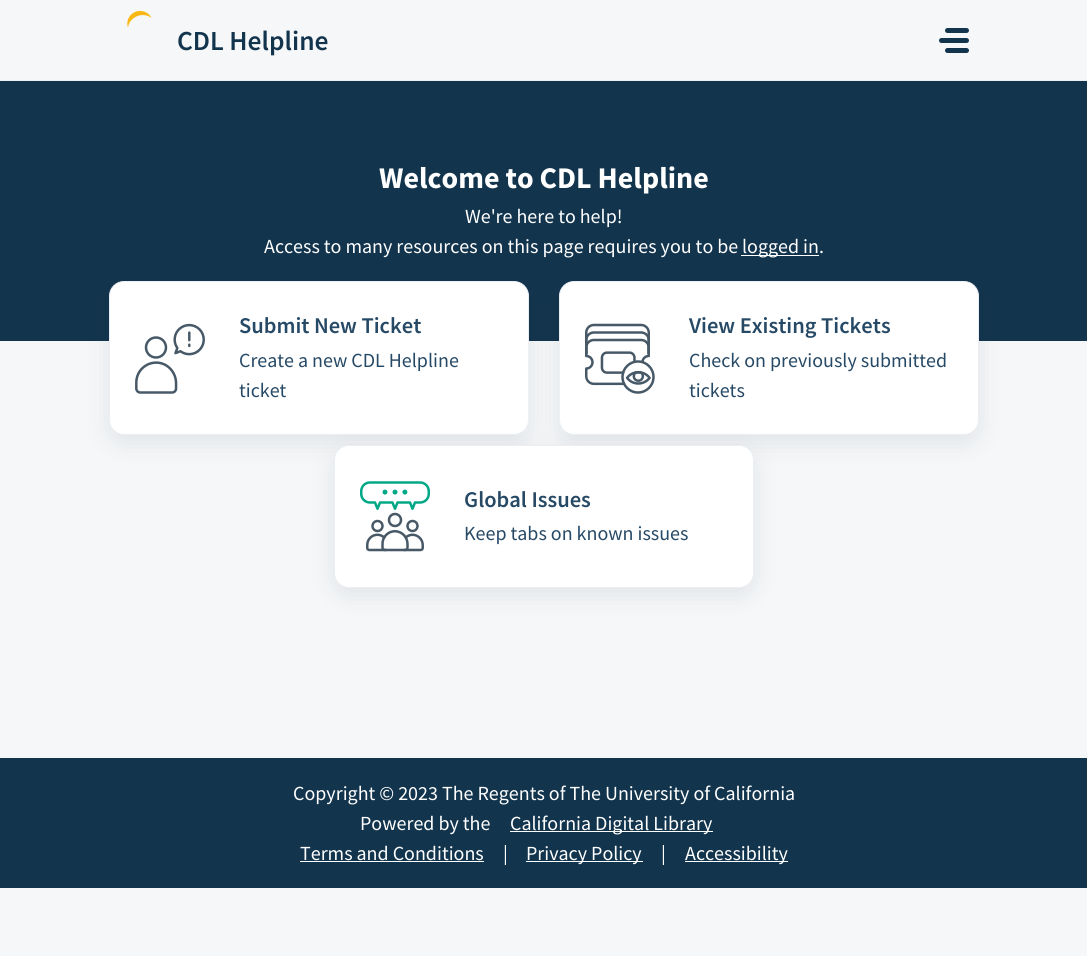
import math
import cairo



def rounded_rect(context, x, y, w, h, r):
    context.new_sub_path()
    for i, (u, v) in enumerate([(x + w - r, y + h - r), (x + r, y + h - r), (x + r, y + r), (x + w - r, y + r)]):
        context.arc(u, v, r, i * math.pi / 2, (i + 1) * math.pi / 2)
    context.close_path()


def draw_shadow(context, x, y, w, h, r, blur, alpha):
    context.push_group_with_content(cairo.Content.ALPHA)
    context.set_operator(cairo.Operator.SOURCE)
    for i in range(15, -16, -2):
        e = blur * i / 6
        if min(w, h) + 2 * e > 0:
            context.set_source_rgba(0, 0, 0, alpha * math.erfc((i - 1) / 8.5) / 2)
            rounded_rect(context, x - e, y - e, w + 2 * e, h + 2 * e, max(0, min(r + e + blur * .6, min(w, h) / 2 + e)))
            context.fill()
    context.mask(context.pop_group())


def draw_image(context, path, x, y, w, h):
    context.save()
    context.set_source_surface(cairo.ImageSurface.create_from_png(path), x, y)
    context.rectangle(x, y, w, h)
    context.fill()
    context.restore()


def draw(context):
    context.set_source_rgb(245 / 255, 247 / 255, 249 / 255)
    context.paint()
    context.set_source_rgb(235 / 255, 239 / 255, 243 / 255)
    context.rectangle(0, 80, 1087, 1)
    context.fill()
    draw_image(context, "images/1.png", 127, 10, 25, 18)
    context.set_source_rgb(18 / 255, 52 / 255, 77 / 255)
    rounded_rect(context, 945, 28, 24, 5, 2.5)
    context.fill()
    rounded_rect(context, 939, 38, 30, 5, 2.5)
    context.fill()
    rounded_rect(context, 945, 48, 24, 5, 2.5)
    context.fill()
    context.rectangle(0, 81, 1087, 260)
    context.fill()
    context.set_source_rgb(1, 1, 1)
    context.rectangle(741, 255, 78, 1)
    context.fill()
    context.set_source_rgb(39 / 255, 49 / 255, 58 / 255)
    draw_shadow(context, 109, 289, 420, 154, 15, 12, 0.1)
    context.set_source_rgb(1, 1, 1)
    rounded_rect(context, 109.5, 281.5, 419, 153, 14.5)
    context.fill_preserve()
    context.set_source_rgb(235 / 255, 239 / 255, 243 / 255)
    context.set_line_width(1)
    context.stroke()
    draw_image(context, "images/2.png", 135, 323, 70, 71)
    context.set_source_rgb(39 / 255, 49 / 255, 58 / 255)
    draw_shadow(context, 559, 289, 420, 154, 15, 12, 0.1)
    context.set_source_rgb(1, 1, 1)
    rounded_rect(context, 559.5, 281.5, 419, 153, 14.5)
    context.fill_preserve()
    context.set_source_rgb(235 / 255, 239 / 255, 243 / 255)
    context.stroke()
    draw_image(context, "images/3.png", 585, 323, 70, 71)
    context.set_source_rgb(39 / 255, 49 / 255, 58 / 255)
    draw_shadow(context, 334, 453, 420, 142, 15, 12, 0.1)
    context.set_source_rgb(1, 1, 1)
    rounded_rect(context, 334.5, 445.5, 419, 142, 14.5)
    context.fill_preserve()
    context.set_source_rgb(235 / 255, 239 / 255, 243 / 255)
    context.stroke()
    draw_image(context, "images/4.png", 360, 481, 70, 71)
    context.set_source_rgb(18 / 255, 52 / 255, 77 / 255)
    context.rectangle(0, 758, 1087, 130)
    context.fill()
    context.set_source_rgb(1, 1, 1)
    context.rectangle(510, 831, 203, 1)
    context.fill()
    context.rectangle(300, 861, 184, 1)
    context.fill()
    context.rectangle(526, 861, 117, 1)
    context.fill()
    context.rectangle(685, 861, 103, 1)
    context.fill()
    context.select_font_face("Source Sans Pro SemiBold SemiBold")
    context.set_font_size(27.5)
    context.set_source_rgb(18 / 255, 52 / 255, 77 / 255)
    context.move_to(177, 50)
    context.show_text("CDL Helpline")
    context.select_font_face("Source Sans Pro", cairo.FontSlant.NORMAL, cairo.FontWeight.BOLD)
    context.set_font_size(30)
    context.set_source_rgb(1, 1, 1)
    context.move_to(379, 188)
    context.show_text("Welcome to CDL Helpline")
    context.select_font_face("Source Sans Pro")
    context.set_font_size(20)
    context.move_to(465, 223)
    context.show_text("We're here to help!")
    context.move_to(264, 253)
    context.show_text("Access to many resources on this page requires you to be")
    context.move_to(742, 253)
    context.show_text("logged in.")
    context.select_font_face("Source Sans Pro SemiBold SemiBold")
    context.set_font_size(22.5)
    context.set_source_rgb(38 / 255, 73 / 255, 102 / 255)
    context.move_to(239, 333)
    context.show_text("Submit New Ticket")
    context.select_font_face("Source Sans Pro")
    context.set_font_size(20)
    context.move_to(239, 367)
    context.show_text("Create a new CDL Helpline")
    context.move_to(239, 397)
    context.show_text("ticket")
    context.select_font_face("Source Sans Pro SemiBold SemiBold")
    context.set_font_size(22.5)
    context.move_to(689, 333)
    context.show_text("View Existing Tickets")
    context.select_font_face("Source Sans Pro")
    context.set_font_size(20)
    context.move_to(689, 367)
    context.show_text("Check on previously submitted")
    context.move_to(689, 397)
    context.show_text("tickets")
    context.select_font_face("Source Sans Pro SemiBold SemiBold")
    context.set_font_size(22.5)
    context.move_to(464, 507)
    context.show_text("Global Issues")
    context.select_font_face("Source Sans Pro")
    context.set_font_size(20)
    context.move_to(464, 540)
    context.show_text("Keep tabs on known issues")
    context.set_source_rgb(1, 1, 1)
    context.move_to(293, 800)
    context.show_text("Copyright © 2023 The Regents of The University of California")
    context.move_to(360, 830)
    context.show_text("Powered by the")
    context.move_to(510, 830)
    context.show_text("California Digital Library")
    context.move_to(300, 860)
    context.show_text("Terms and Conditions")
    context.move_to(503, 860)
    context.show_text("|")
    context.move_to(526, 860)
    context.show_text("Privacy Policy")
    context.move_to(661, 860)
    context.show_text("|")
    context.move_to(685, 860)
    context.show_text("Accessibility")


surface = cairo.ImageSurface(cairo.Format.RGB24, 1087, 956)
context = cairo.Context(surface)
options = cairo.FontOptions()
options.set_hint_metrics(cairo.HintMetrics.OFF)
options.set_hint_style(cairo.HintStyle.NONE)
context.set_font_options(options)
context.set_miter_limit(4)
draw(context)
surface.write_to_png("out.png")
